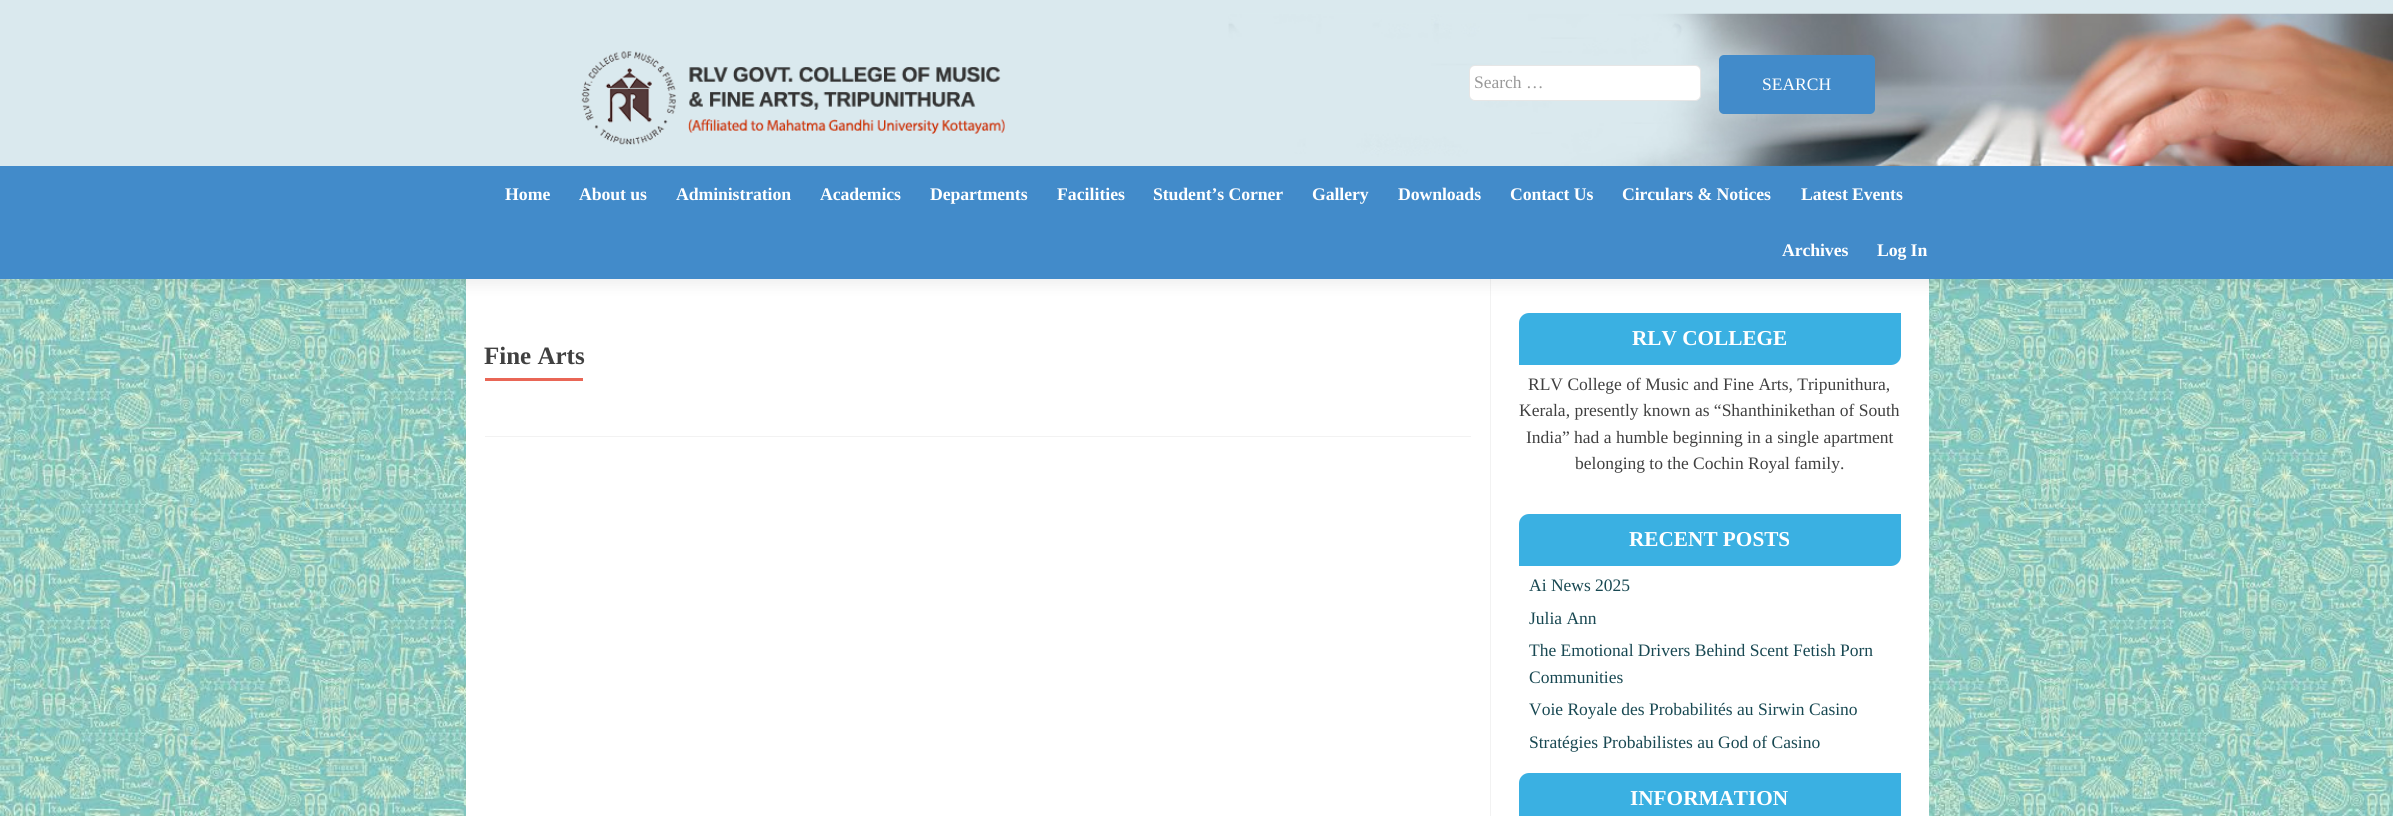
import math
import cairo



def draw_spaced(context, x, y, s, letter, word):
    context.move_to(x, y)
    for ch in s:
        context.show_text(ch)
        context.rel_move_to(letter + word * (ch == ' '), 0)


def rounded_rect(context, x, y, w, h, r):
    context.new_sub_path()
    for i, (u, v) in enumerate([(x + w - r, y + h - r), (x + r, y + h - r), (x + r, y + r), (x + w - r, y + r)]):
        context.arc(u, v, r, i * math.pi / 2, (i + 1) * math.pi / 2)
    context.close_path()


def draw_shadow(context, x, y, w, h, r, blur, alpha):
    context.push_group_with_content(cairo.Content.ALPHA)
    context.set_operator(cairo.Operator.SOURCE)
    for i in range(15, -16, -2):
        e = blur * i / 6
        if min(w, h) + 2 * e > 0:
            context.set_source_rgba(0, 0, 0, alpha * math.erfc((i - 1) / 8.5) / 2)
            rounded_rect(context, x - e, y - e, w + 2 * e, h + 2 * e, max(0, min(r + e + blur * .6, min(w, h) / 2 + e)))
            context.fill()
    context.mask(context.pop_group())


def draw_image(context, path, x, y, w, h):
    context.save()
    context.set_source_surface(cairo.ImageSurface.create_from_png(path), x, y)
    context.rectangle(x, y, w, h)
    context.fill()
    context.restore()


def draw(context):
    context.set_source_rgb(1, 1, 1)
    context.paint()
    draw_image(context, "images/3.png", 0, 279, 2393, 537)
    context.set_source_rgb(1, 1, 1)
    context.rectangle(466, 279, 1463, 537)
    context.fill()
    context.set_source_rgb(242 / 255, 242 / 255, 242 / 255)
    context.rectangle(1490, 279, 1, 537)
    context.fill()
    context.set_source_rgb(50 / 255, 50 / 255, 50 / 255)
    draw_shadow(context, 0, 6, 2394, 279, 0, 7, 0.08)
    context.set_source_rgb(218 / 255, 233 / 255, 238 / 255)
    context.rectangle(0, 0, 2393, 166)
    context.fill()
    draw_image(context, "images/1.png", 1228, 13, 1165, 153)
    draw_image(context, "images/2.png", 581, 51, 424, 94)
    context.set_source_rgb(1, 1, 1)
    rounded_rect(context, 1469, 65, 232, 36, 6)
    context.fill()
    rounded_rect(context, 1469.5, 65.5, 231, 35, 5.5)
    context.set_source_rgba(0, 0, 0, 0.1)
    context.set_line_width(1)
    context.stroke()
    context.set_source_rgb(66 / 255, 139 / 255, 202 / 255)
    rounded_rect(context, 1719, 55, 156, 59, 5)
    context.fill()
    context.rectangle(0, 166, 2393, 113)
    context.fill()
    context.set_source_rgb(242 / 255, 242 / 255, 242 / 255)
    context.rectangle(485, 436, 986, 1)
    context.fill()
    context.set_source_rgb(233 / 255, 102 / 255, 86 / 255)
    context.rectangle(485, 378, 98, 3)
    context.fill()
    context.set_source_rgb(58 / 255, 176 / 255, 226 / 255)
    context.new_path()
    context.move_to(1529, 313)
    context.line_to(1901, 313)
    context.line_to(1901, 355)
    context.curve_to(1901, 360.5, 1896.5, 365, 1891, 365)
    context.line_to(1519, 365)
    context.line_to(1519, 323)
    context.curve_to(1519, 317.5, 1523.5, 313, 1529, 313)
    context.close_path()
    context.fill()
    context.new_path()
    context.move_to(1529, 514)
    context.line_to(1901, 514)
    context.line_to(1901, 556)
    context.curve_to(1901, 561.5, 1896.5, 566, 1891, 566)
    context.line_to(1519, 566)
    context.line_to(1519, 524)
    context.curve_to(1519, 518.5, 1523.5, 514, 1529, 514)
    context.close_path()
    context.fill()
    context.new_path()
    context.move_to(1529, 773)
    context.line_to(1901, 773)
    context.line_to(1901, 815)
    context.curve_to(1901, 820.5, 1896.5, 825, 1891, 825)
    context.line_to(1519, 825)
    context.line_to(1519, 783)
    context.curve_to(1519, 777.5, 1523.5, 773, 1529, 773)
    context.close_path()
    context.fill()
    context.select_font_face("Liberation Serif")
    context.set_font_size(17.5)
    context.set_source_rgb(153 / 255, 153 / 255, 153 / 255)
    context.move_to(1474, 88)
    context.show_text("Search …")
    context.set_source_rgb(1, 1, 1)
    context.move_to(1762, 90)
    context.show_text("SEARCH")
    context.select_font_face("Liberation Serif", cairo.FontSlant.NORMAL, cairo.FontWeight.BOLD)
    context.set_font_size(17.75)
    context.move_to(505, 200)
    context.show_text("Home")
    draw_spaced(context, 579, 200, "About us", -0.1, 0)
    draw_spaced(context, 676, 200, "Administration", -0.1, 0)
    draw_spaced(context, 820, 200, "Academics", -0.1, 0)
    draw_spaced(context, 930, 200, "Departments", -0.1, 0)
    context.move_to(1057, 200)
    context.show_text("Facilities")
    draw_spaced(context, 1153, 200, "Student’s Corner", -0.1, 0)
    draw_spaced(context, 1312, 200, "Gallery", -0.1, 0)
    draw_spaced(context, 1398, 200, "Downloads", -0.1, 0)
    draw_spaced(context, 1510, 200, "Contact Us", -0.1, 0)
    draw_spaced(context, 1622, 200, "Circulars & Notices", -0.1, 0)
    draw_spaced(context, 1801, 200, "Latest Events", -0.1, 0)
    draw_spaced(context, 1782, 256, "Archives", -0.1, 0)
    draw_spaced(context, 1877, 256, "Log In", -0.1, 0)
    context.set_font_size(25)
    context.set_source_rgb(64 / 255, 64 / 255, 64 / 255)
    context.move_to(484, 364)
    context.show_text("Fine Arts")
    context.set_font_size(21.25)
    context.set_source_rgb(1, 1, 1)
    context.move_to(1632, 345)
    context.show_text("RLV COLLEGE")
    context.select_font_face("Liberation Serif")
    context.set_font_size(17.5)
    context.set_source_rgb(64 / 255, 64 / 255, 64 / 255)
    context.move_to(1528, 390)
    context.show_text("RLV College of Music and Fine Arts, Tripunithura,")
    context.move_to(1519, 416)
    context.show_text("Kerala, presently known as “Shanthinikethan of South")
    context.move_to(1526, 443)
    context.show_text("India” had a humble beginning in a single apartment")
    context.move_to(1575, 469)
    context.show_text("belonging to the Cochin Royal family.")
    context.select_font_face("Liberation Serif", cairo.FontSlant.NORMAL, cairo.FontWeight.BOLD)
    context.set_font_size(21.25)
    context.set_source_rgb(1, 1, 1)
    context.move_to(1629, 546)
    context.show_text("RECENT POSTS")
    context.select_font_face("Liberation Serif")
    context.set_font_size(17.5)
    context.set_source_rgb(24 / 255, 72 / 255, 82 / 255)
    context.move_to(1529, 591)
    context.show_text("Ai News 2025")
    context.move_to(1529, 624)
    context.show_text("Julia Ann")
    context.move_to(1529, 656)
    context.show_text("The Emotional Drivers Behind Scent Fetish Porn")
    context.move_to(1529, 683)
    context.show_text("Communities")
    context.move_to(1529, 715)
    context.show_text("Voie Royale des Probabilités au Sirwin Casino")
    context.move_to(1529, 748)
    context.show_text("Stratégies Probabilistes au God of Casino")
    context.select_font_face("Liberation Serif", cairo.FontSlant.NORMAL, cairo.FontWeight.BOLD)
    context.set_font_size(21.25)
    context.set_source_rgb(1, 1, 1)
    context.move_to(1630, 805)
    context.show_text("INFORMATION")


surface = cairo.ImageSurface(cairo.Format.RGB24, 2393, 816)
context = cairo.Context(surface)
options = cairo.FontOptions()
options.set_hint_metrics(cairo.HintMetrics.OFF)
options.set_hint_style(cairo.HintStyle.NONE)
context.set_font_options(options)
context.set_miter_limit(4)
draw(context)
surface.write_to_png("out.png")
